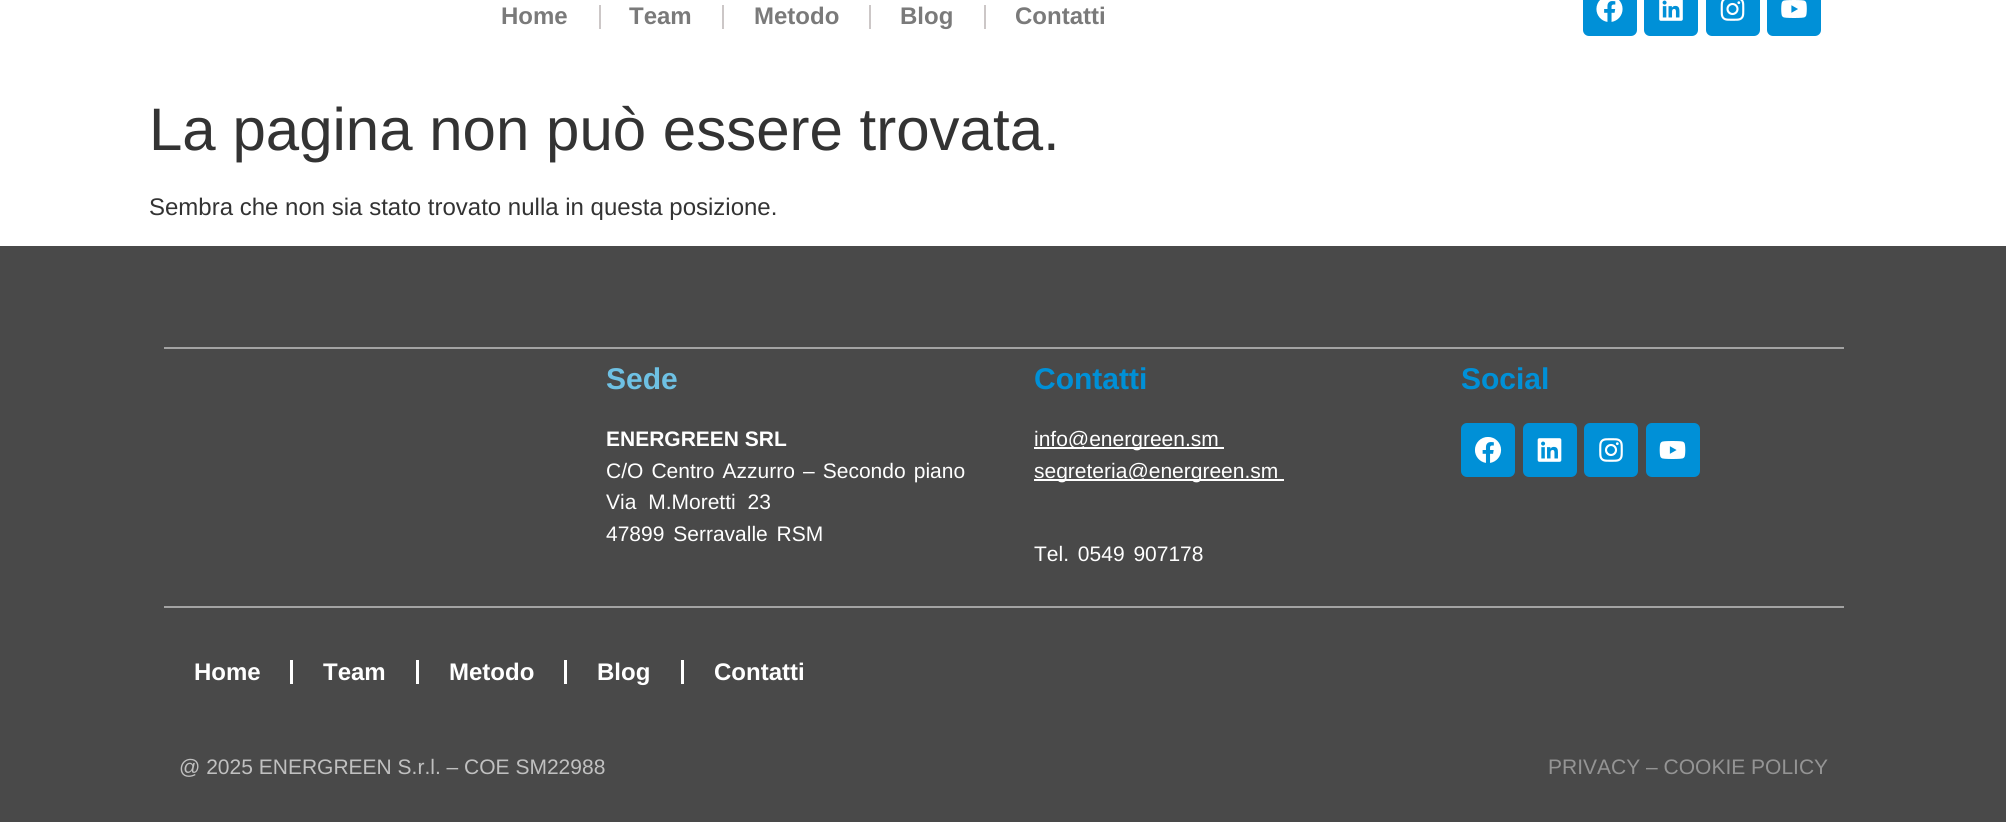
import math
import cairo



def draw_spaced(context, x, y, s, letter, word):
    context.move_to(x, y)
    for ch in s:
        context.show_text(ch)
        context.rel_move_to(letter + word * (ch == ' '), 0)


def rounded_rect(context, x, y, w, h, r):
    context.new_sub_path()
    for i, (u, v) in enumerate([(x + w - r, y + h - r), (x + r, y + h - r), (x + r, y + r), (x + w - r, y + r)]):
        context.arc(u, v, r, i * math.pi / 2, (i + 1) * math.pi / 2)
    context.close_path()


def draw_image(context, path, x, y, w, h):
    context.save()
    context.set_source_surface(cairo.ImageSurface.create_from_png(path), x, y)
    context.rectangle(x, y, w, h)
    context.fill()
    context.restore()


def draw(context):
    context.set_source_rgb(1, 1, 1)
    context.paint()
    context.set_source_rgb(204 / 255, 199 / 255, 199 / 255)
    context.rectangle(599, 5, 2, 24)
    context.fill()
    context.rectangle(722, 5, 2, 24)
    context.fill()
    context.rectangle(869, 5, 2, 24)
    context.fill()
    context.rectangle(984, 5, 2, 24)
    context.fill()
    context.set_source_rgb(0, 144 / 255, 215 / 255)
    rounded_rect(context, 1583, -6, 54, 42, 6)
    context.fill()
    draw_image(context, "images/1.png", 1596, 0, 27, 22)
    rounded_rect(context, 1644, -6, 54, 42, 6)
    context.fill()
    draw_image(context, "images/2.png", 1659, 0, 24, 21)
    rounded_rect(context, 1706, -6, 54, 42, 6)
    context.fill()
    draw_image(context, "images/3.png", 1720, 0, 25, 21)
    rounded_rect(context, 1767, -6, 54, 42, 6)
    context.fill()
    draw_image(context, "images/4.png", 1781, 0, 26, 18)
    context.set_source_rgb(73 / 255, 73 / 255, 73 / 255)
    context.rectangle(0, 246, 2006, 576)
    context.fill()
    context.set_source_rgb(163 / 255, 163 / 255, 163 / 255)
    context.rectangle(164, 347, 1680, 2)
    context.fill()
    context.rectangle(164, 606, 1680, 2)
    context.fill()
    context.set_source_rgb(1, 1, 1)
    context.rectangle(1034, 447, 190, 2)
    context.fill()
    context.rectangle(1034, 479, 250, 2)
    context.fill()
    context.set_source_rgb(0, 144 / 255, 215 / 255)
    rounded_rect(context, 1461, 423, 54, 54, 6)
    context.fill()
    draw_image(context, "images/5.png", 1475, 437, 27, 26)
    rounded_rect(context, 1523, 423, 54, 54, 6)
    context.fill()
    draw_image(context, "images/6.png", 1537, 438, 25, 24)
    rounded_rect(context, 1584, 423, 54, 54, 6)
    context.fill()
    draw_image(context, "images/7.png", 1599, 438, 24, 24)
    rounded_rect(context, 1646, 423, 54, 54, 6)
    context.fill()
    draw_image(context, "images/8.png", 1659, 441, 27, 18)
    context.set_source_rgb(1, 1, 1)
    context.rectangle(290, 660, 3, 24)
    context.fill()
    context.rectangle(416, 660, 3, 24)
    context.fill()
    context.rectangle(564, 660, 3, 24)
    context.fill()
    context.rectangle(681, 660, 3, 24)
    context.fill()
    context.select_font_face("Liberation Sans", cairo.FontSlant.NORMAL, cairo.FontWeight.BOLD)
    context.set_font_size(24)
    context.set_source_rgb(122 / 255, 122 / 255, 122 / 255)
    context.move_to(501, 24)
    context.show_text("Home")
    context.move_to(629, 24)
    context.show_text("Team")
    context.move_to(754, 24)
    context.show_text("Metodo")
    context.move_to(900, 24)
    context.show_text("Blog")
    context.move_to(1015, 24)
    context.show_text("Contatti")
    context.select_font_face("Liberation Sans")
    context.set_font_size(60)
    context.set_source_rgb(51 / 255, 51 / 255, 51 / 255)
    context.move_to(149, 150)
    context.show_text("La pagina non può essere trovata.")
    context.set_font_size(24)
    context.move_to(149, 215)
    context.show_text("Sembra che non sia stato trovato nulla in questa posizione.")
    context.select_font_face("Liberation Sans", cairo.FontSlant.NORMAL, cairo.FontWeight.BOLD)
    context.set_font_size(30)
    context.set_source_rgb(110 / 255, 193 / 255, 228 / 255)
    context.move_to(606, 389)
    context.show_text("Sede")
    context.set_font_size(21)
    context.set_source_rgb(1, 1, 1)
    context.move_to(606, 446)
    context.show_text("ENERGREEN SRL")
    context.select_font_face("Liberation Sans")
    draw_spaced(context, 606, 478, "C/O Centro Azzurro – Secondo piano", 0, 2.25)
    draw_spaced(context, 606, 509, "Via M.Moretti 23", 0, 6)
    draw_spaced(context, 606, 541, "47899 Serravalle RSM", 0, 3)
    context.select_font_face("Liberation Sans", cairo.FontSlant.NORMAL, cairo.FontWeight.BOLD)
    context.set_font_size(30)
    context.set_source_rgb(0, 144 / 255, 215 / 255)
    context.move_to(1034, 389)
    context.show_text("Contatti")
    context.select_font_face("Liberation Sans")
    context.set_font_size(21)
    context.set_source_rgb(1, 1, 1)
    context.move_to(1034, 446)
    context.show_text("info@energreen.sm")
    context.move_to(1034, 478)
    context.show_text("segreteria@energreen.sm")
    draw_spaced(context, 1034, 561, "Tel. 0549 907178", 0, 3)
    context.select_font_face("Liberation Sans", cairo.FontSlant.NORMAL, cairo.FontWeight.BOLD)
    context.set_font_size(30)
    context.set_source_rgb(0, 144 / 255, 215 / 255)
    context.move_to(1461, 389)
    context.show_text("Social")
    context.set_font_size(24)
    context.set_source_rgb(1, 1, 1)
    context.move_to(194, 680)
    context.show_text("Home")
    context.move_to(323, 680)
    context.show_text("Team")
    context.move_to(449, 680)
    context.show_text("Metodo")
    context.move_to(597, 680)
    context.show_text("Blog")
    context.move_to(714, 680)
    context.show_text("Contatti")
    context.select_font_face("Liberation Sans")
    context.set_font_size(21)
    context.set_source_rgb(192 / 255, 192 / 255, 192 / 255)
    context.move_to(179, 774)
    context.show_text("@ 2025 ENERGREEN S.r.l. – COE SM22988")
    context.set_source_rgb(148 / 255, 148 / 255, 148 / 255)
    context.move_to(1548, 774)
    context.show_text("PRIVACY – COOKIE POLICY")


surface = cairo.ImageSurface(cairo.Format.RGB24, 2006, 822)
context = cairo.Context(surface)
options = cairo.FontOptions()
options.set_hint_metrics(cairo.HintMetrics.OFF)
options.set_hint_style(cairo.HintStyle.NONE)
context.set_font_options(options)
context.set_miter_limit(4)
draw(context)
surface.write_to_png("out.png")
